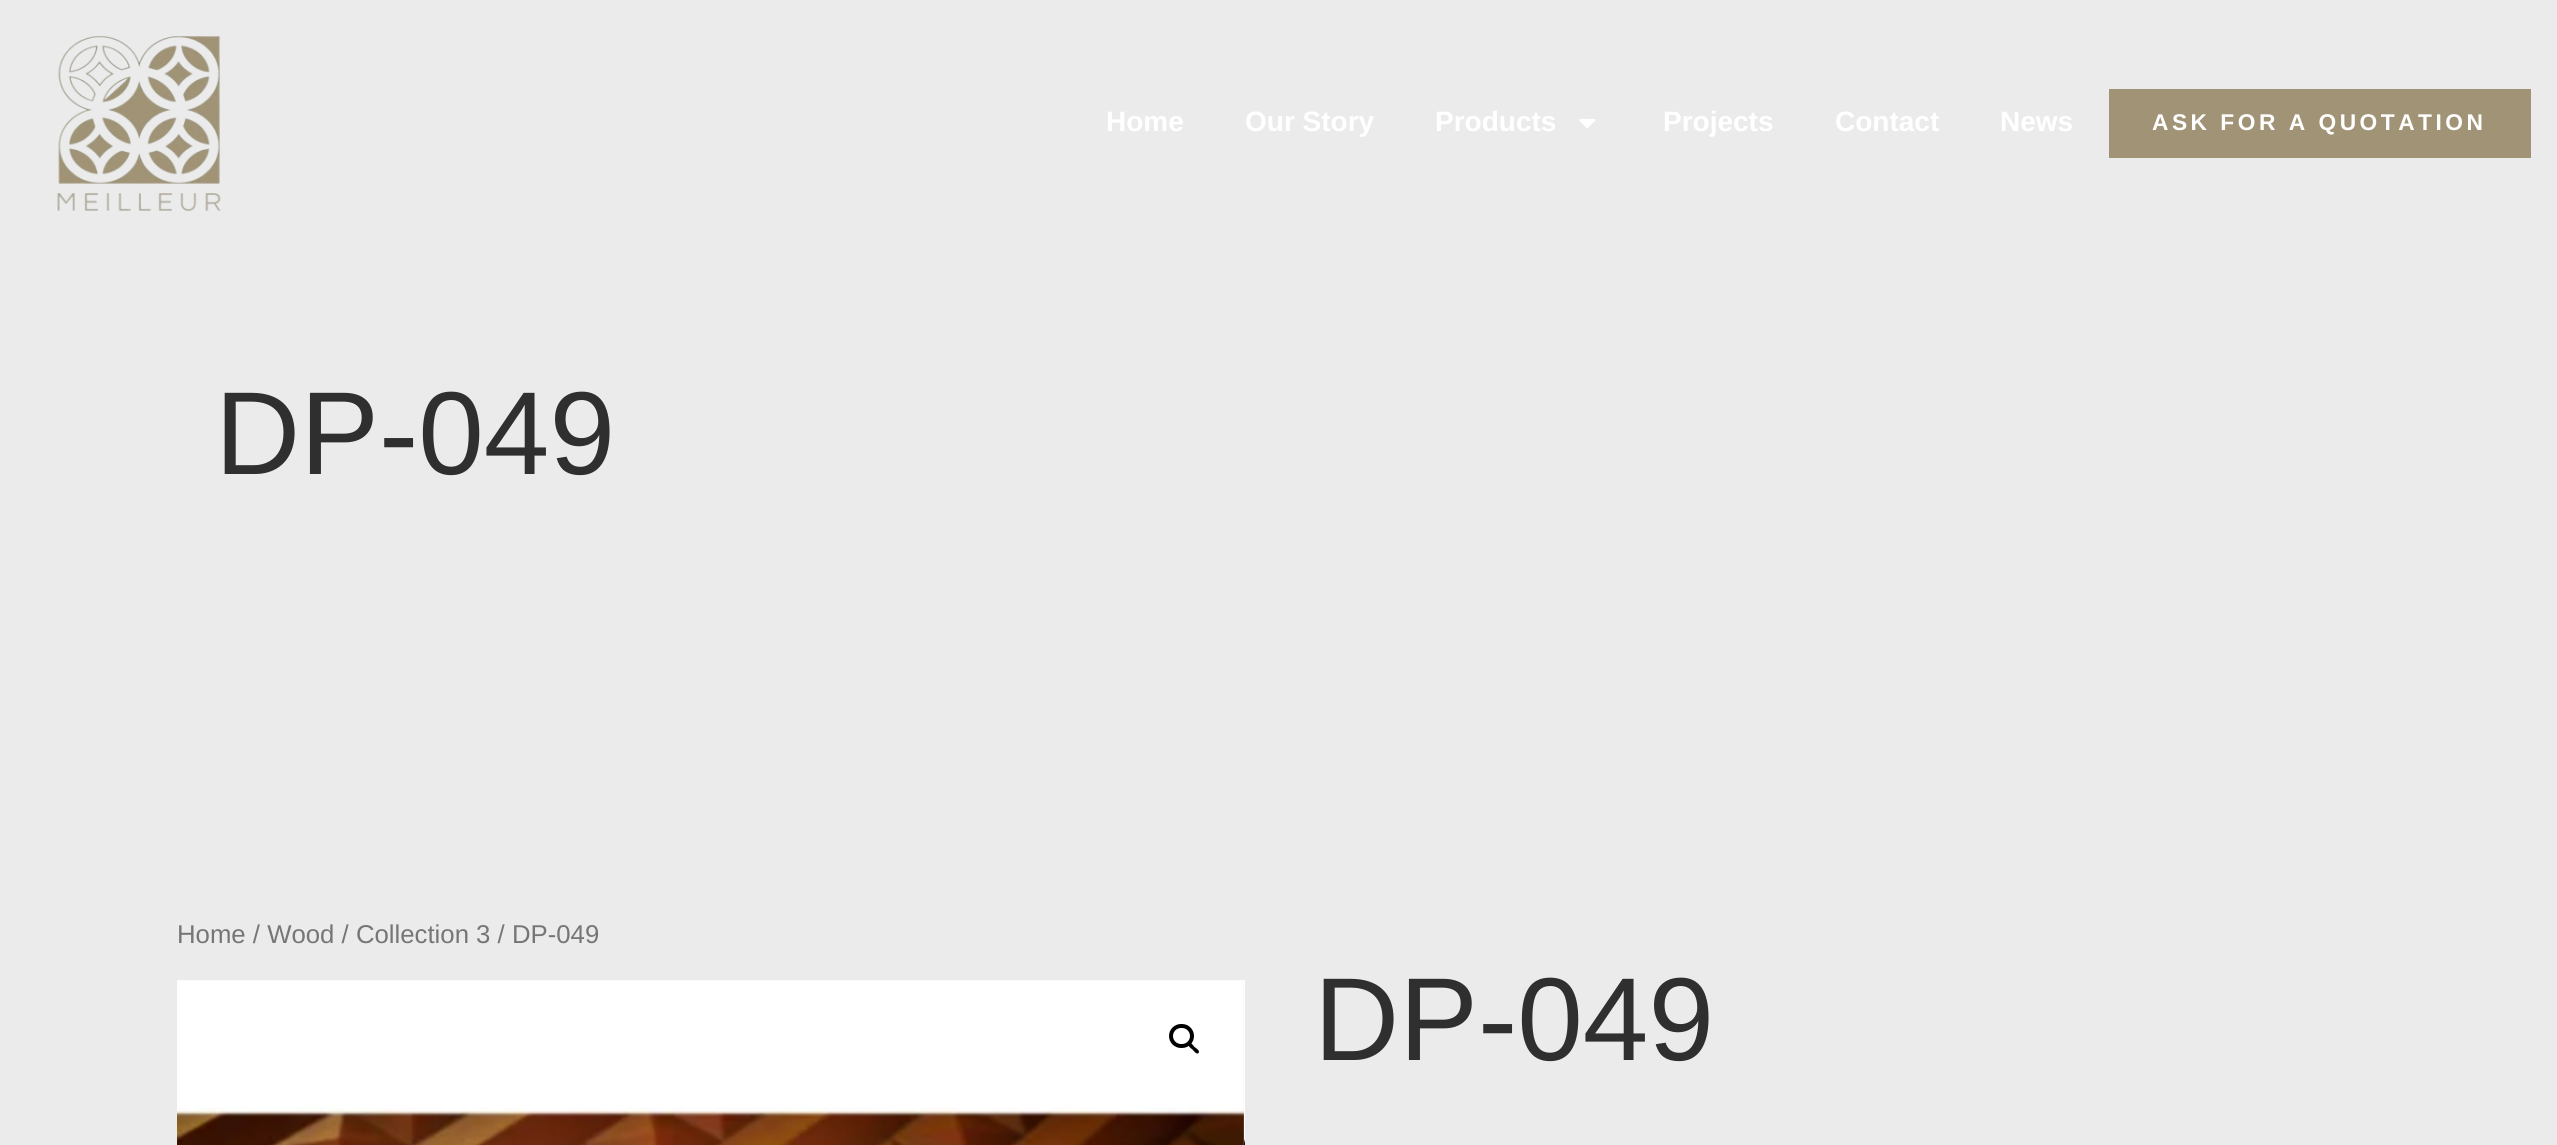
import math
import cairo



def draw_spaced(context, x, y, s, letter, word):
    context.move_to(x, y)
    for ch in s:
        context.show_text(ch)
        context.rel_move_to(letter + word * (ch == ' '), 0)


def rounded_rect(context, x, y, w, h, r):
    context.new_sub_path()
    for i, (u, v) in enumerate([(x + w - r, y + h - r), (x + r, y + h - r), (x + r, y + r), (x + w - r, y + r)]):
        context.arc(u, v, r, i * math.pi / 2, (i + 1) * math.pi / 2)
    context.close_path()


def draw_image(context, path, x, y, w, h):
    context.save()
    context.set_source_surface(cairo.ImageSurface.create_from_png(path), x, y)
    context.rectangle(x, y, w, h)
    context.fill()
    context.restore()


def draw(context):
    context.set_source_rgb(235 / 255, 235 / 255, 235 / 255)
    context.paint()
    draw_image(context, "images/1.png", 57, 36, 164, 176)
    draw_image(context, "images/2.png", 1579, 119, 17, 9)
    context.set_source_rgb(161 / 255, 147 / 255, 118 / 255)
    context.rectangle(2109, 89, 422, 69)
    context.fill()
    draw_image(context, "images/3.png", 177, 980, 1068, 165)
    draw_image(context, "images/4.png", 1244, 980, 1, 165)
    rounded_rect(context, 1171, 1026, 21, 20, 10)
    context.set_source_rgb(0, 0, 0)
    context.set_line_width(4)
    context.stroke()
    context.new_path()
    context.move_to(1188.5, 1043)
    context.curve_to(1190.5, 1041, 1193.5, 1046, 1194.5, 1047)
    context.curve_to(1196, 1048, 1200.5, 1051, 1198.5, 1053)
    context.curve_to(1196.5, 1055, 1193.5, 1050.5, 1192.5, 1049.5)
    context.curve_to(1191, 1048.5, 1186.5, 1045, 1188.5, 1043)
    context.close_path()
    context.fill()
    context.select_font_face("Liberation Sans", cairo.FontSlant.NORMAL, cairo.FontWeight.BOLD)
    context.set_font_size(28)
    context.set_source_rgb(1, 1, 1)
    context.move_to(1106, 131)
    context.show_text("Home")
    context.move_to(1245, 131)
    context.show_text("Our Story")
    context.move_to(1435, 131)
    context.show_text("Products")
    context.move_to(1663, 131)
    context.show_text("Projects")
    context.move_to(1835, 131)
    context.show_text("Contact")
    context.move_to(2000, 131)
    context.show_text("News")
    context.set_font_size(22.75)
    draw_spaced(context, 2152, 130, "ASK FOR A QUOTATION", 3.5, 0)
    context.select_font_face("Liberation Sans")
    context.set_font_size(118)
    context.set_source_rgb(47 / 255, 47 / 255, 47 / 255)
    context.move_to(215, 474)
    context.show_text("DP-049")
    context.set_font_size(25.75)
    context.set_source_rgb(118 / 255, 118 / 255, 118 / 255)
    context.move_to(177, 943)
    context.show_text("Home / Wood / Collection 3 / DP-049")
    context.set_font_size(118)
    context.set_source_rgb(47 / 255, 47 / 255, 47 / 255)
    context.move_to(1314, 1060)
    context.show_text("DP-049")


surface = cairo.ImageSurface(cairo.Format.RGB24, 2557, 1145)
context = cairo.Context(surface)
options = cairo.FontOptions()
options.set_hint_metrics(cairo.HintMetrics.OFF)
options.set_hint_style(cairo.HintStyle.NONE)
context.set_font_options(options)
context.set_miter_limit(4)
draw(context)
surface.write_to_png("out.png")
